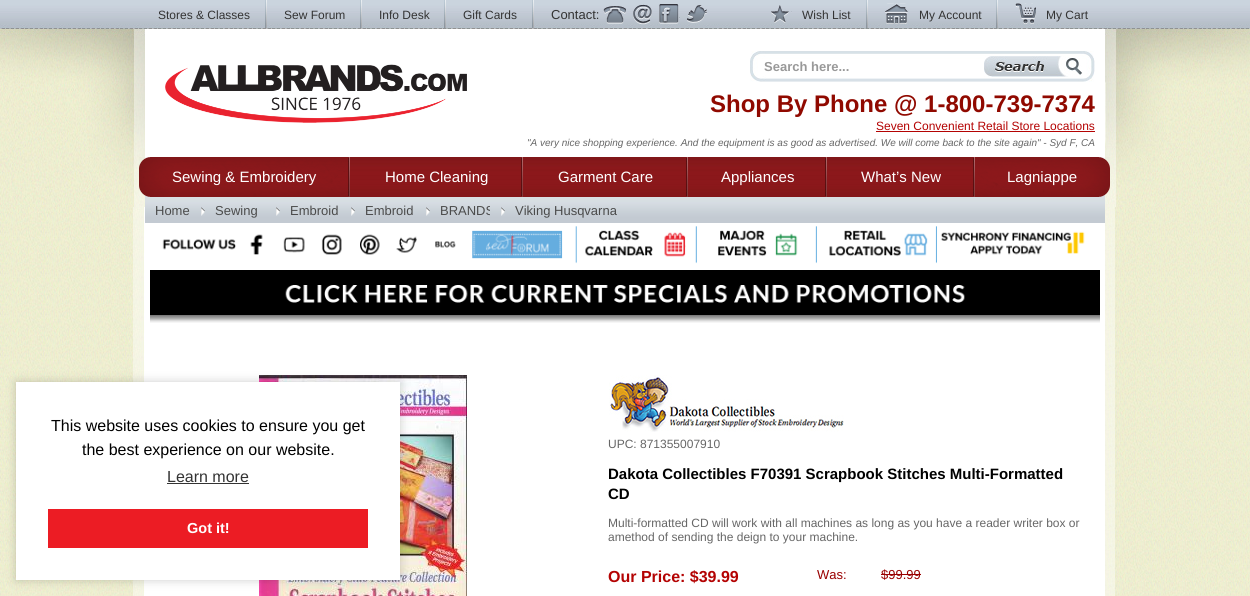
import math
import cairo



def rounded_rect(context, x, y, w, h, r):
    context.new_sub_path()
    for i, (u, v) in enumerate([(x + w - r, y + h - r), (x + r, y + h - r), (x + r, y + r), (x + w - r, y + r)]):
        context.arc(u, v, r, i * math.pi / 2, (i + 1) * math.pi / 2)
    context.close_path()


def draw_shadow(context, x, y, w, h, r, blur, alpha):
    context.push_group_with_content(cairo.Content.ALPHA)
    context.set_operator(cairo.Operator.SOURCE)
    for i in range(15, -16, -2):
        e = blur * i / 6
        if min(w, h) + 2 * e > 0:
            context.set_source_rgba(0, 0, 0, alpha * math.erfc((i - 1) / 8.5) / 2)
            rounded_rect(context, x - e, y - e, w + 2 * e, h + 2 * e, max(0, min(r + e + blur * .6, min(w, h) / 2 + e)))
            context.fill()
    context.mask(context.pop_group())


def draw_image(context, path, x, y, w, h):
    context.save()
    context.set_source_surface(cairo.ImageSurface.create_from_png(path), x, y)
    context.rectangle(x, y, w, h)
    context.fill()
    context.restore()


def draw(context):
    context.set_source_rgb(1, 1, 1)
    context.paint()
    draw_image(context, "images/1.png", 0, 0, 1250, 29)
    draw_image(context, "images/2.png", 265, 0, 2, 28)
    draw_image(context, "images/2.png", 360, 0, 2, 28)
    draw_image(context, "images/2.png", 444, 0, 2, 28)
    draw_image(context, "images/2.png", 532, 0, 2, 28)
    draw_image(context, "images/3.png", 603, 6, 23, 18)
    draw_image(context, "images/4.png", 633, 4, 19, 21)
    draw_image(context, "images/5.png", 659, 4, 21, 20)
    draw_image(context, "images/6.png", 687, 5, 20, 18)
    draw_image(context, "images/2.png", 866, 0, 2, 28)
    draw_image(context, "images/7.png", 771, 5, 21, 18)
    draw_image(context, "images/2.png", 996, 0, 2, 28)
    draw_image(context, "images/8.png", 885, 3, 23, 21)
    draw_image(context, "images/9.png", 1015, 3, 21, 21)
    draw_image(context, "images/10.png", 0, 207, 1250, 389)
    draw_image(context, "images/11.png", 133, 207, 984, 389)
    draw_image(context, "images/12.png", 0, 29, 1250, 178)
    context.set_source_rgb(1, 1, 1)
    context.rectangle(145, 29, 960, 567)
    context.fill()
    draw_image(context, "images/13.png", 165, 64, 302, 59)
    draw_image(context, "images/14.png", 750, 51, 345, 31)
    draw_image(context, "images/15.png", 984, 56, 98, 21)
    context.set_source_rgb(180 / 255, 3 / 255, 3 / 255)
    context.rectangle(876, 131, 219, 1)
    context.fill()
    draw_image(context, "images/23.png", 145, 194, 960, 29)
    draw_image(context, "images/16.png", 139, 157, 209, 40)
    draw_image(context, "images/17.png", 348, 157, 2, 40)
    draw_image(context, "images/18.png", 350, 157, 171, 40)
    draw_image(context, "images/17.png", 521, 157, 2, 40)
    draw_image(context, "images/19.png", 523, 157, 163, 40)
    draw_image(context, "images/17.png", 686, 157, 2, 40)
    draw_image(context, "images/20.png", 688, 157, 137, 40)
    draw_image(context, "images/17.png", 825, 157, 2, 40)
    draw_image(context, "images/21.png", 827, 157, 146, 40)
    draw_image(context, "images/17.png", 973, 157, 2, 40)
    draw_image(context, "images/22.png", 975, 157, 135, 40)
    draw_image(context, "images/24.png", 201, 207, 4, 9)
    draw_image(context, "images/24.png", 276, 207, 4, 9)
    draw_image(context, "images/24.png", 351, 207, 4, 9)
    draw_image(context, "images/24.png", 426, 207, 4, 9)
    draw_image(context, "images/24.png", 501, 207, 4, 9)
    draw_image(context, "images/25.png", 162, 226, 923, 38)
    draw_image(context, "images/26.png", 150, 270, 950, 53)
    draw_image(context, "images/27.png", 259, 375, 208, 221)
    draw_image(context, "images/28.png", 609, 375, 235, 57)
    context.set_source_rgb(153 / 255, 0, 0)
    context.rectangle(881, 574, 40, 1)
    context.fill()
    context.set_source_rgb(0, 0, 0)
    draw_shadow(context, 16, 382, 384, 198, 0, 5, 0.2)
    context.set_source_rgb(1, 1, 1)
    context.rectangle(16, 382, 384, 198)
    context.fill()
    context.set_source_rgb(51 / 255, 51 / 255, 51 / 255)
    context.rectangle(167, 483, 82, 1)
    context.fill()
    context.set_source_rgb(236 / 255, 28 / 255, 36 / 255)
    context.rectangle(48, 509, 320, 39)
    context.fill()
    context.select_font_face("Liberation Sans")
    context.set_font_size(12)
    context.set_source_rgb(51 / 255, 51 / 255, 51 / 255)
    context.move_to(158, 19)
    context.show_text("Stores & Classes")
    context.move_to(284, 19)
    context.show_text("Sew Forum")
    context.move_to(379, 19)
    context.show_text("Info Desk")
    context.move_to(463, 19)
    context.show_text("Gift Cards")
    context.set_font_size(13)
    context.move_to(551, 19)
    context.show_text("Contact:")
    context.set_font_size(12)
    context.move_to(802, 19)
    context.show_text("Wish List")
    context.move_to(919, 19)
    context.show_text("My Account")
    context.move_to(1046, 19)
    context.show_text("My Cart")
    context.select_font_face("Liberation Sans", cairo.FontSlant.NORMAL, cairo.FontWeight.BOLD)
    context.set_font_size(13)
    context.set_source_rgb(153 / 255, 153 / 255, 153 / 255)
    context.move_to(764, 71)
    context.show_text("Search here...")
    context.set_font_size(24)
    context.set_source_rgb(144 / 255, 9 / 255, 0)
    context.move_to(710, 112)
    context.show_text("Shop By Phone @ 1-800-739-7374")
    context.select_font_face("Liberation Sans")
    context.set_font_size(12)
    context.set_source_rgb(180 / 255, 3 / 255, 3 / 255)
    context.move_to(876, 130)
    context.show_text("Seven Convenient Retail Store Locations")
    context.select_font_face("Liberation Sans", cairo.FontSlant.ITALIC)
    context.set_font_size(10)
    context.set_source_rgb(102 / 255, 102 / 255, 102 / 255)
    context.move_to(527, 146)
    context.show_text("\"A very nice shopping experience. And the equipment is as good as advertised. We will come back to the site again\" - Syd F, CA")
    context.select_font_face("Liberation Sans")
    context.set_font_size(15)
    context.set_source_rgb(1, 1, 1)
    context.move_to(172, 182)
    context.show_text("Sewing & Embroidery")
    context.move_to(385, 182)
    context.show_text("Home Cleaning")
    context.move_to(558, 182)
    context.show_text("Garment Care")
    context.move_to(721, 182)
    context.show_text("Appliances")
    context.move_to(861, 182)
    context.show_text("What’s New")
    context.move_to(1007, 182)
    context.show_text("Lagniappe")
    context.set_font_size(13)
    context.set_source_rgb(75 / 255, 75 / 255, 75 / 255)
    context.move_to(155, 215)
    context.show_text("Home")
    context.move_to(215, 215)
    context.show_text("Sewing")
    context.move_to(290, 215)
    context.show_text("Embroid")
    context.move_to(365, 215)
    context.show_text("Embroid")
    context.save()
    context.rectangle(440, 198, 50, 25)
    context.clip()
    context.move_to(440, 215)
    context.show_text("BRANDS")
    context.restore()
    context.move_to(515, 215)
    context.show_text("Viking Husqvarna")
    context.set_font_size(12)
    context.set_source_rgb(102 / 255, 102 / 255, 102 / 255)
    context.move_to(608, 448)
    context.show_text("UPC: 871355007910")
    context.select_font_face("Liberation Sans", cairo.FontSlant.NORMAL, cairo.FontWeight.BOLD)
    context.set_font_size(15)
    context.set_source_rgb(0, 0, 0)
    context.move_to(608, 479)
    context.show_text("Dakota Collectibles F70391 Scrapbook Stitches Multi-Formatted")
    context.move_to(608, 499)
    context.show_text("CD")
    context.select_font_face("Liberation Sans")
    context.set_font_size(12)
    context.set_source_rgb(102 / 255, 102 / 255, 102 / 255)
    context.move_to(608, 527)
    context.show_text("Multi-formatted CD will work with all machines as long as you have a reader writer box or")
    context.move_to(608, 541)
    context.show_text("amethod of sending the deign to your machine.")
    context.select_font_face("Liberation Sans", cairo.FontSlant.NORMAL, cairo.FontWeight.BOLD)
    context.set_font_size(16)
    context.set_source_rgb(180 / 255, 3 / 255, 3 / 255)
    context.move_to(608, 582)
    context.show_text("Our Price: $39.99")
    context.select_font_face("Liberation Sans")
    context.set_font_size(13)
    context.set_source_rgb(153 / 255, 0, 0)
    context.move_to(817, 579)
    context.show_text("Was:")
    context.move_to(881, 579)
    context.show_text("$99.99")
    context.set_font_size(16)
    context.set_source_rgb(0, 0, 0)
    context.move_to(51, 431)
    context.show_text("This website uses cookies to ensure you get")
    context.move_to(82, 455)
    context.show_text("the best experience on our website.")
    context.set_source_rgb(51 / 255, 51 / 255, 51 / 255)
    context.move_to(167, 482)
    context.show_text("Learn more")
    context.select_font_face("Liberation Sans", cairo.FontSlant.NORMAL, cairo.FontWeight.BOLD)
    context.set_font_size(14.5)
    context.set_source_rgb(1, 1, 1)
    context.move_to(187, 533)
    context.show_text("Got it!")


surface = cairo.ImageSurface(cairo.Format.RGB24, 1250, 596)
context = cairo.Context(surface)
options = cairo.FontOptions()
options.set_hint_metrics(cairo.HintMetrics.OFF)
options.set_hint_style(cairo.HintStyle.NONE)
context.set_font_options(options)
context.set_miter_limit(4)
draw(context)
surface.write_to_png("out.png")
